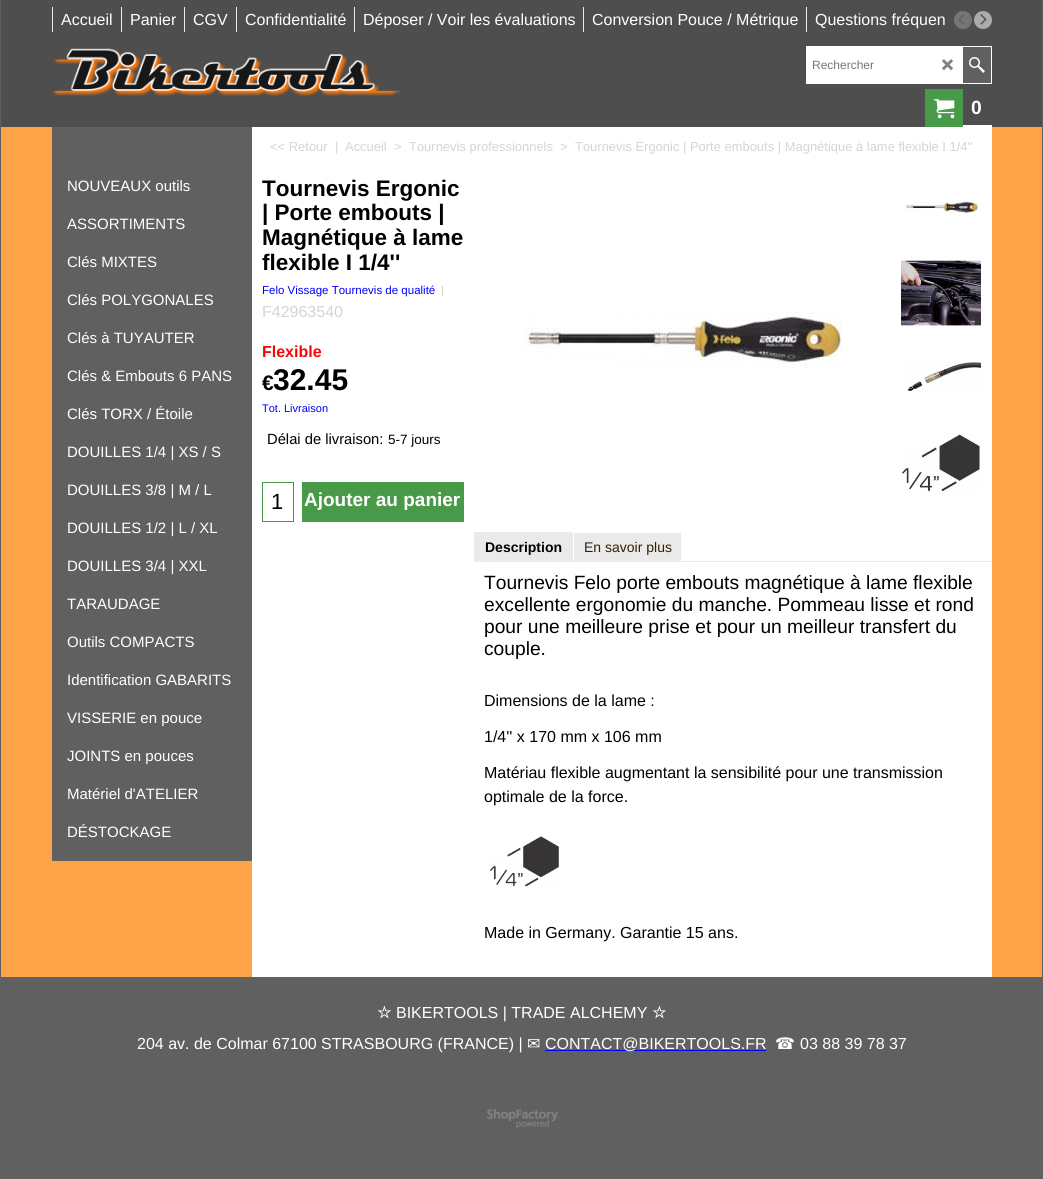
import math
import cairo



def draw_image(context, path, x, y, w, h):
    context.save()
    context.set_source_surface(cairo.ImageSurface.create_from_png(path), x, y)
    context.rectangle(x, y, w, h)
    context.fill()
    context.restore()


def draw(context):
    context.set_source_rgb(96 / 255, 96 / 255, 96 / 255)
    context.paint()
    context.set_source_rgb(1, 163 / 255, 72 / 255)
    context.rectangle(1, 127, 1041, 850)
    context.fill()
    context.set_source_rgb(78 / 255, 78 / 255, 78 / 255)
    context.rectangle(1, 0, 1041, 127)
    context.fill()
    context.set_source_rgb(234 / 255, 234 / 255, 234 / 255)
    context.rectangle(52, 7, 1, 25)
    context.fill()
    context.rectangle(121, 7, 1, 25)
    context.fill()
    context.rectangle(184, 7, 1, 25)
    context.fill()
    context.rectangle(236, 7, 1, 25)
    context.fill()
    context.rectangle(354, 7, 1, 25)
    context.fill()
    context.rectangle(583, 7, 1, 25)
    context.fill()
    context.rectangle(806, 7, 1, 25)
    context.fill()
    context.set_source_rgb(118 / 255, 118 / 255, 118 / 255)
    context.arc(963, 20, 9, 0, 2 * math.pi)
    context.fill()
    draw_image(context, "images/1.png", 958, 14, 7, 11)
    context.set_source_rgb(171 / 255, 171 / 255, 171 / 255)
    context.arc(983, 20, 9, 0, 2 * math.pi)
    context.fill()
    draw_image(context, "images/2.png", 980, 14, 7, 11)
    draw_image(context, "images/3.png", 53, 48, 349, 49)
    context.rectangle(806.5, 46.5, 185, 37)
    context.set_source_rgb(1, 1, 1)
    context.set_line_width(1)
    context.stroke()
    context.rectangle(807, 47, 156, 36)
    context.fill()
    draw_image(context, "images/4.png", 942, 59, 11, 12)
    context.set_source_rgb(96 / 255, 96 / 255, 96 / 255)
    context.rectangle(963, 47, 28, 36)
    context.fill()
    draw_image(context, "images/5.png", 969, 57, 16, 16)
    context.set_source_rgb(1, 1, 1)
    context.rectangle(963, 125, 29, 2)
    context.fill()
    context.set_source_rgb(72 / 255, 153 / 255, 72 / 255)
    context.rectangle(925, 89, 38, 38)
    context.fill()
    draw_image(context, "images/6.png", 934, 99, 21, 20)
    context.set_source_rgb(96 / 255, 96 / 255, 96 / 255)
    context.rectangle(52, 127, 200, 734)
    context.fill()
    context.set_source_rgb(1, 1, 1)
    context.rectangle(252, 127, 740, 850)
    context.fill()
    context.set_source_rgb(72 / 255, 153 / 255, 72 / 255)
    context.rectangle(262, 482, 32, 40)
    context.fill()
    context.set_source_rgb(1, 1, 1)
    context.rectangle(263, 483, 30, 38)
    context.fill()
    context.set_source_rgb(72 / 255, 153 / 255, 72 / 255)
    context.rectangle(302, 482, 162, 40)
    context.fill()
    draw_image(context, "images/7.png", 522, 312, 320, 56)
    draw_image(context, "images/8.png", 905, 201, 73, 12)
    draw_image(context, "images/9.png", 901, 260, 80, 66)
    draw_image(context, "images/10.png", 907, 362, 74, 29)
    draw_image(context, "images/11.png", 901, 434, 79, 58)
    context.set_source_rgb(234 / 255, 234 / 255, 234 / 255)
    context.rectangle(474, 532, 99, 30)
    context.fill()
    context.rectangle(574, 533, 107, 28)
    context.fill()
    context.rectangle(573, 561, 419, 1)
    context.fill()
    draw_image(context, "images/12.png", 489, 836, 70, 51)
    context.set_source_rgb(0, 0, 1)
    context.rectangle(545, 1050, 221, 1)
    context.fill()
    draw_image(context, "images/13.png", 487, 1109, 71, 20)
    context.select_font_face("Liberation Sans")
    context.set_font_size(16)
    context.set_source_rgb(1, 1, 1)
    context.move_to(61, 25)
    context.show_text("Accueil")
    context.move_to(130, 25)
    context.show_text("Panier")
    context.move_to(193, 25)
    context.show_text("CGV")
    context.move_to(245, 25)
    context.show_text("Confidentialité")
    context.move_to(363, 25)
    context.show_text("Déposer / Voir les évaluations")
    context.move_to(592, 25)
    context.show_text("Conversion Pouce / Métrique")
    context.move_to(815, 25)
    context.show_text("Questions fréquen")
    context.set_font_size(12)
    context.set_source_rgb(117 / 255, 117 / 255, 117 / 255)
    context.move_to(812, 69)
    context.show_text("Rechercher")
    context.select_font_face("Liberation Sans", cairo.FontSlant.NORMAL, cairo.FontWeight.BOLD)
    context.set_font_size(19.2)
    context.set_source_rgb(1, 1, 1)
    context.move_to(971, 114)
    context.show_text("0")
    context.select_font_face("Liberation Sans")
    context.set_font_size(15)
    context.move_to(67, 191)
    context.show_text("NOUVEAUX outils")
    context.move_to(67, 229)
    context.show_text("ASSORTIMENTS")
    context.move_to(67, 267)
    context.show_text("Clés MIXTES")
    context.move_to(67, 305)
    context.show_text("Clés POLYGONALES")
    context.move_to(67, 343)
    context.show_text("Clés à TUYAUTER")
    context.move_to(67, 381)
    context.show_text("Clés & Embouts 6 PANS")
    context.move_to(67, 419)
    context.show_text("Clés TORX / Étoile")
    context.move_to(67, 457)
    context.show_text("DOUILLES 1/4 | XS / S")
    context.move_to(67, 495)
    context.show_text("DOUILLES 3/8 | M / L")
    context.move_to(67, 533)
    context.show_text("DOUILLES 1/2 | L / XL")
    context.move_to(67, 571)
    context.show_text("DOUILLES 3/4 | XXL")
    context.move_to(67, 609)
    context.show_text("TARAUDAGE")
    context.move_to(67, 647)
    context.show_text("Outils COMPACTS")
    context.move_to(67, 685)
    context.show_text("Identification GABARITS")
    context.move_to(67, 723)
    context.show_text("VISSERIE en pouce")
    context.move_to(67, 761)
    context.show_text("JOINTS en pouces")
    context.move_to(67, 799)
    context.show_text("Matériel d'ATELIER")
    context.move_to(67, 837)
    context.show_text("DÉSTOCKAGE")
    context.set_font_size(12.95)
    context.set_source_rgb(212 / 255, 212 / 255, 212 / 255)
    context.move_to(270, 151)
    context.show_text("<< Retour")
    context.move_to(335, 151)
    context.show_text("|")
    context.move_to(345, 151)
    context.show_text("Accueil")
    context.move_to(394, 151)
    context.show_text(">")
    context.move_to(409, 151)
    context.show_text("Tournevis professionnels")
    context.move_to(560, 151)
    context.show_text(">")
    context.move_to(575, 151)
    context.show_text("Tournevis Ergonic | Porte embouts | Magnétique à lame flexible I 1/4''")
    context.select_font_face("Liberation Sans", cairo.FontSlant.NORMAL, cairo.FontWeight.BOLD)
    context.set_font_size(22.5)
    context.set_source_rgb(0, 0, 0)
    context.move_to(262, 196)
    context.show_text("Tournevis Ergonic")
    context.move_to(262, 220)
    context.show_text("| Porte embouts |")
    context.move_to(262, 245)
    context.show_text("Magnétique à lame")
    context.move_to(262, 270)
    context.show_text("flexible I 1/4''")
    context.select_font_face("Liberation Sans")
    context.set_font_size(11.5)
    context.set_source_rgb(0, 0, 1)
    context.move_to(262, 294)
    context.show_text("Felo Vissage Tournevis de qualité")
    context.set_source_rgb(212 / 255, 212 / 255, 212 / 255)
    context.move_to(441, 294)
    context.show_text("|")
    context.set_font_size(16)
    context.move_to(262, 317)
    context.show_text("F42963540")
    context.select_font_face("Liberation Sans", cairo.FontSlant.NORMAL, cairo.FontWeight.BOLD)
    context.set_source_rgb(1, 3 / 255, 3 / 255)
    context.move_to(262, 357)
    context.show_text("Flexible")
    context.save()
    context.rectangle(262, 336, 202, 80)
    context.clip()
    context.set_font_size(21)
    context.set_source_rgb(0, 0, 0)
    context.move_to(262, 390)
    context.show_text("€")
    context.restore()
    context.set_font_size(30)
    context.set_source_rgb(0, 0, 0)
    context.move_to(273, 390)
    context.show_text("32.45")
    context.select_font_face("Liberation Sans")
    context.set_font_size(11)
    context.set_source_rgb(0, 0, 1)
    context.move_to(262, 412)
    context.show_text("Tot. Livraison")
    context.set_font_size(14.75)
    context.set_source_rgb(0, 0, 0)
    context.move_to(267, 444)
    context.show_text("Délai de livraison:")
    context.set_font_size(13.5)
    context.move_to(388, 444)
    context.show_text("5-7 jours")
    context.set_font_size(22)
    context.move_to(271, 509)
    context.show_text("1")
    context.select_font_face("Liberation Sans", cairo.FontSlant.NORMAL, cairo.FontWeight.BOLD)
    context.set_font_size(19)
    context.set_source_rgb(1, 1, 1)
    context.move_to(304, 506)
    context.show_text("Ajouter au panier")
    context.set_font_size(14)
    context.set_source_rgb(0, 0, 0)
    context.move_to(485, 552)
    context.show_text("Description")
    context.select_font_face("Liberation Sans")
    context.set_source_rgb(52 / 255, 32 / 255, 0)
    context.move_to(584, 552)
    context.show_text("En savoir plus")
    context.set_font_size(19.2)
    context.set_source_rgb(0, 0, 0)
    context.move_to(484, 589)
    context.show_text("Tournevis Felo porte embouts magnétique à lame flexible")
    context.move_to(484, 611)
    context.show_text("excellente ergonomie du manche. Pommeau lisse et rond")
    context.move_to(484, 633)
    context.show_text("pour une meilleure prise et pour un meilleur transfert du")
    context.move_to(484, 655)
    context.show_text("couple.")
    context.set_font_size(16)
    context.move_to(484, 706)
    context.show_text("Dimensions de la lame :")
    context.move_to(484, 742)
    context.show_text("1/4'' x 170 mm x 106 mm")
    context.move_to(484, 778)
    context.show_text("Matériau flexible augmentant la sensibilité pour une transmission")
    context.move_to(484, 802)
    context.show_text("optimale de la force.")
    context.move_to(484, 938)
    context.show_text("Made in Germany. Garantie 15 ans.")
    context.select_font_face("DejaVu Sans", cairo.FontSlant.NORMAL, cairo.FontWeight.BOLD)
    context.set_source_rgb(1, 1, 1)
    context.move_to(377, 1018)
    context.show_text("☆")
    context.select_font_face("Liberation Sans")
    context.move_to(396, 1018)
    context.show_text("BIKERTOOLS | TRADE ALCHEMY")
    context.select_font_face("DejaVu Sans", cairo.FontSlant.NORMAL, cairo.FontWeight.BOLD)
    context.move_to(652, 1018)
    context.show_text("☆")
    context.select_font_face("Liberation Sans")
    context.move_to(137, 1049)
    context.show_text("204 av. de Colmar 67100 STRASBOURG (FRANCE) |")
    context.select_font_face("DejaVu Sans")
    context.move_to(527, 1049)
    context.show_text("✉")
    context.select_font_face("Liberation Sans")
    context.move_to(545, 1049)
    context.show_text("CONTACT@BIKERTOOLS.FR")
    context.select_font_face("DejaVu Sans")
    context.move_to(775, 1049)
    context.show_text("☎")
    context.select_font_face("Liberation Sans")
    context.move_to(800, 1049)
    context.show_text("03 88 39 78 37")


surface = cairo.ImageSurface(cairo.Format.RGB24, 1043, 1179)
context = cairo.Context(surface)
options = cairo.FontOptions()
options.set_hint_metrics(cairo.HintMetrics.OFF)
options.set_hint_style(cairo.HintStyle.NONE)
context.set_font_options(options)
context.set_miter_limit(4)
draw(context)
surface.write_to_png("out.png")
